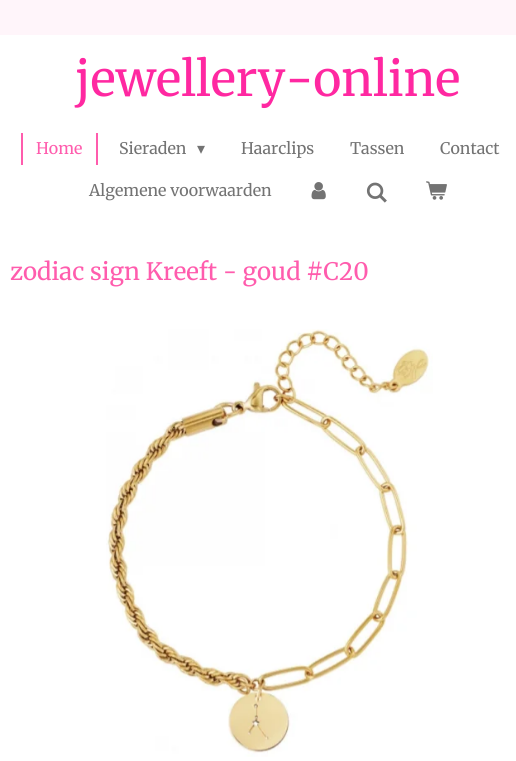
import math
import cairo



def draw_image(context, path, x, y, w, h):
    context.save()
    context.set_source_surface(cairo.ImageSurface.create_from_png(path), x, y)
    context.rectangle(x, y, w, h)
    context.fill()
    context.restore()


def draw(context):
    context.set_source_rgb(1, 1, 1)
    context.paint()
    context.set_source_rgb(1, 245 / 255, 250 / 255)
    context.rectangle(0, 0, 516, 35)
    context.fill()
    context.set_source_rgb(1, 92 / 255, 173 / 255)
    context.rectangle(96, 133, 2, 32)
    context.fill()
    context.rectangle(21, 133, 2, 32)
    context.fill()
    draw_image(context, "images/1.png", 311, 182, 15, 18)
    draw_image(context, "images/2.png", 366, 182, 21, 21)
    draw_image(context, "images/3.png", 426, 181, 21, 19)
    draw_image(context, "images/4.png", 106, 329, 327, 428)
    context.select_font_face("Merriweather")
    context.set_font_size(48)
    context.set_source_rgb(1, 40 / 255, 161 / 255)
    context.move_to(75, 96)
    context.show_text("jewellery-online")
    context.set_font_size(16)
    context.set_source_rgb(1, 92 / 255, 173 / 255)
    context.move_to(36, 154)
    context.show_text("Home")
    context.set_source_rgb(115 / 255, 115 / 255, 115 / 255)
    context.move_to(119, 154)
    context.show_text("Sieraden")
    context.select_font_face("DejaVu Sans")
    context.move_to(197, 154)
    context.show_text("▾")
    context.select_font_face("Merriweather")
    context.move_to(241, 154)
    context.show_text("Haarclips")
    context.move_to(350, 154)
    context.show_text("Tassen")
    context.move_to(440, 154)
    context.show_text("Contact")
    context.move_to(89, 196)
    context.show_text("Algemene voorwaarden")
    context.set_font_size(24)
    context.set_source_rgb(1, 92 / 255, 173 / 255)
    context.move_to(10, 280)
    context.show_text("zodiac sign Kreeft - goud #C20")


surface = cairo.ImageSurface(cairo.Format.RGB24, 516, 761)
context = cairo.Context(surface)
options = cairo.FontOptions()
options.set_hint_metrics(cairo.HintMetrics.OFF)
options.set_hint_style(cairo.HintStyle.NONE)
context.set_font_options(options)
context.set_miter_limit(4)
draw(context)
surface.write_to_png("out.png")
